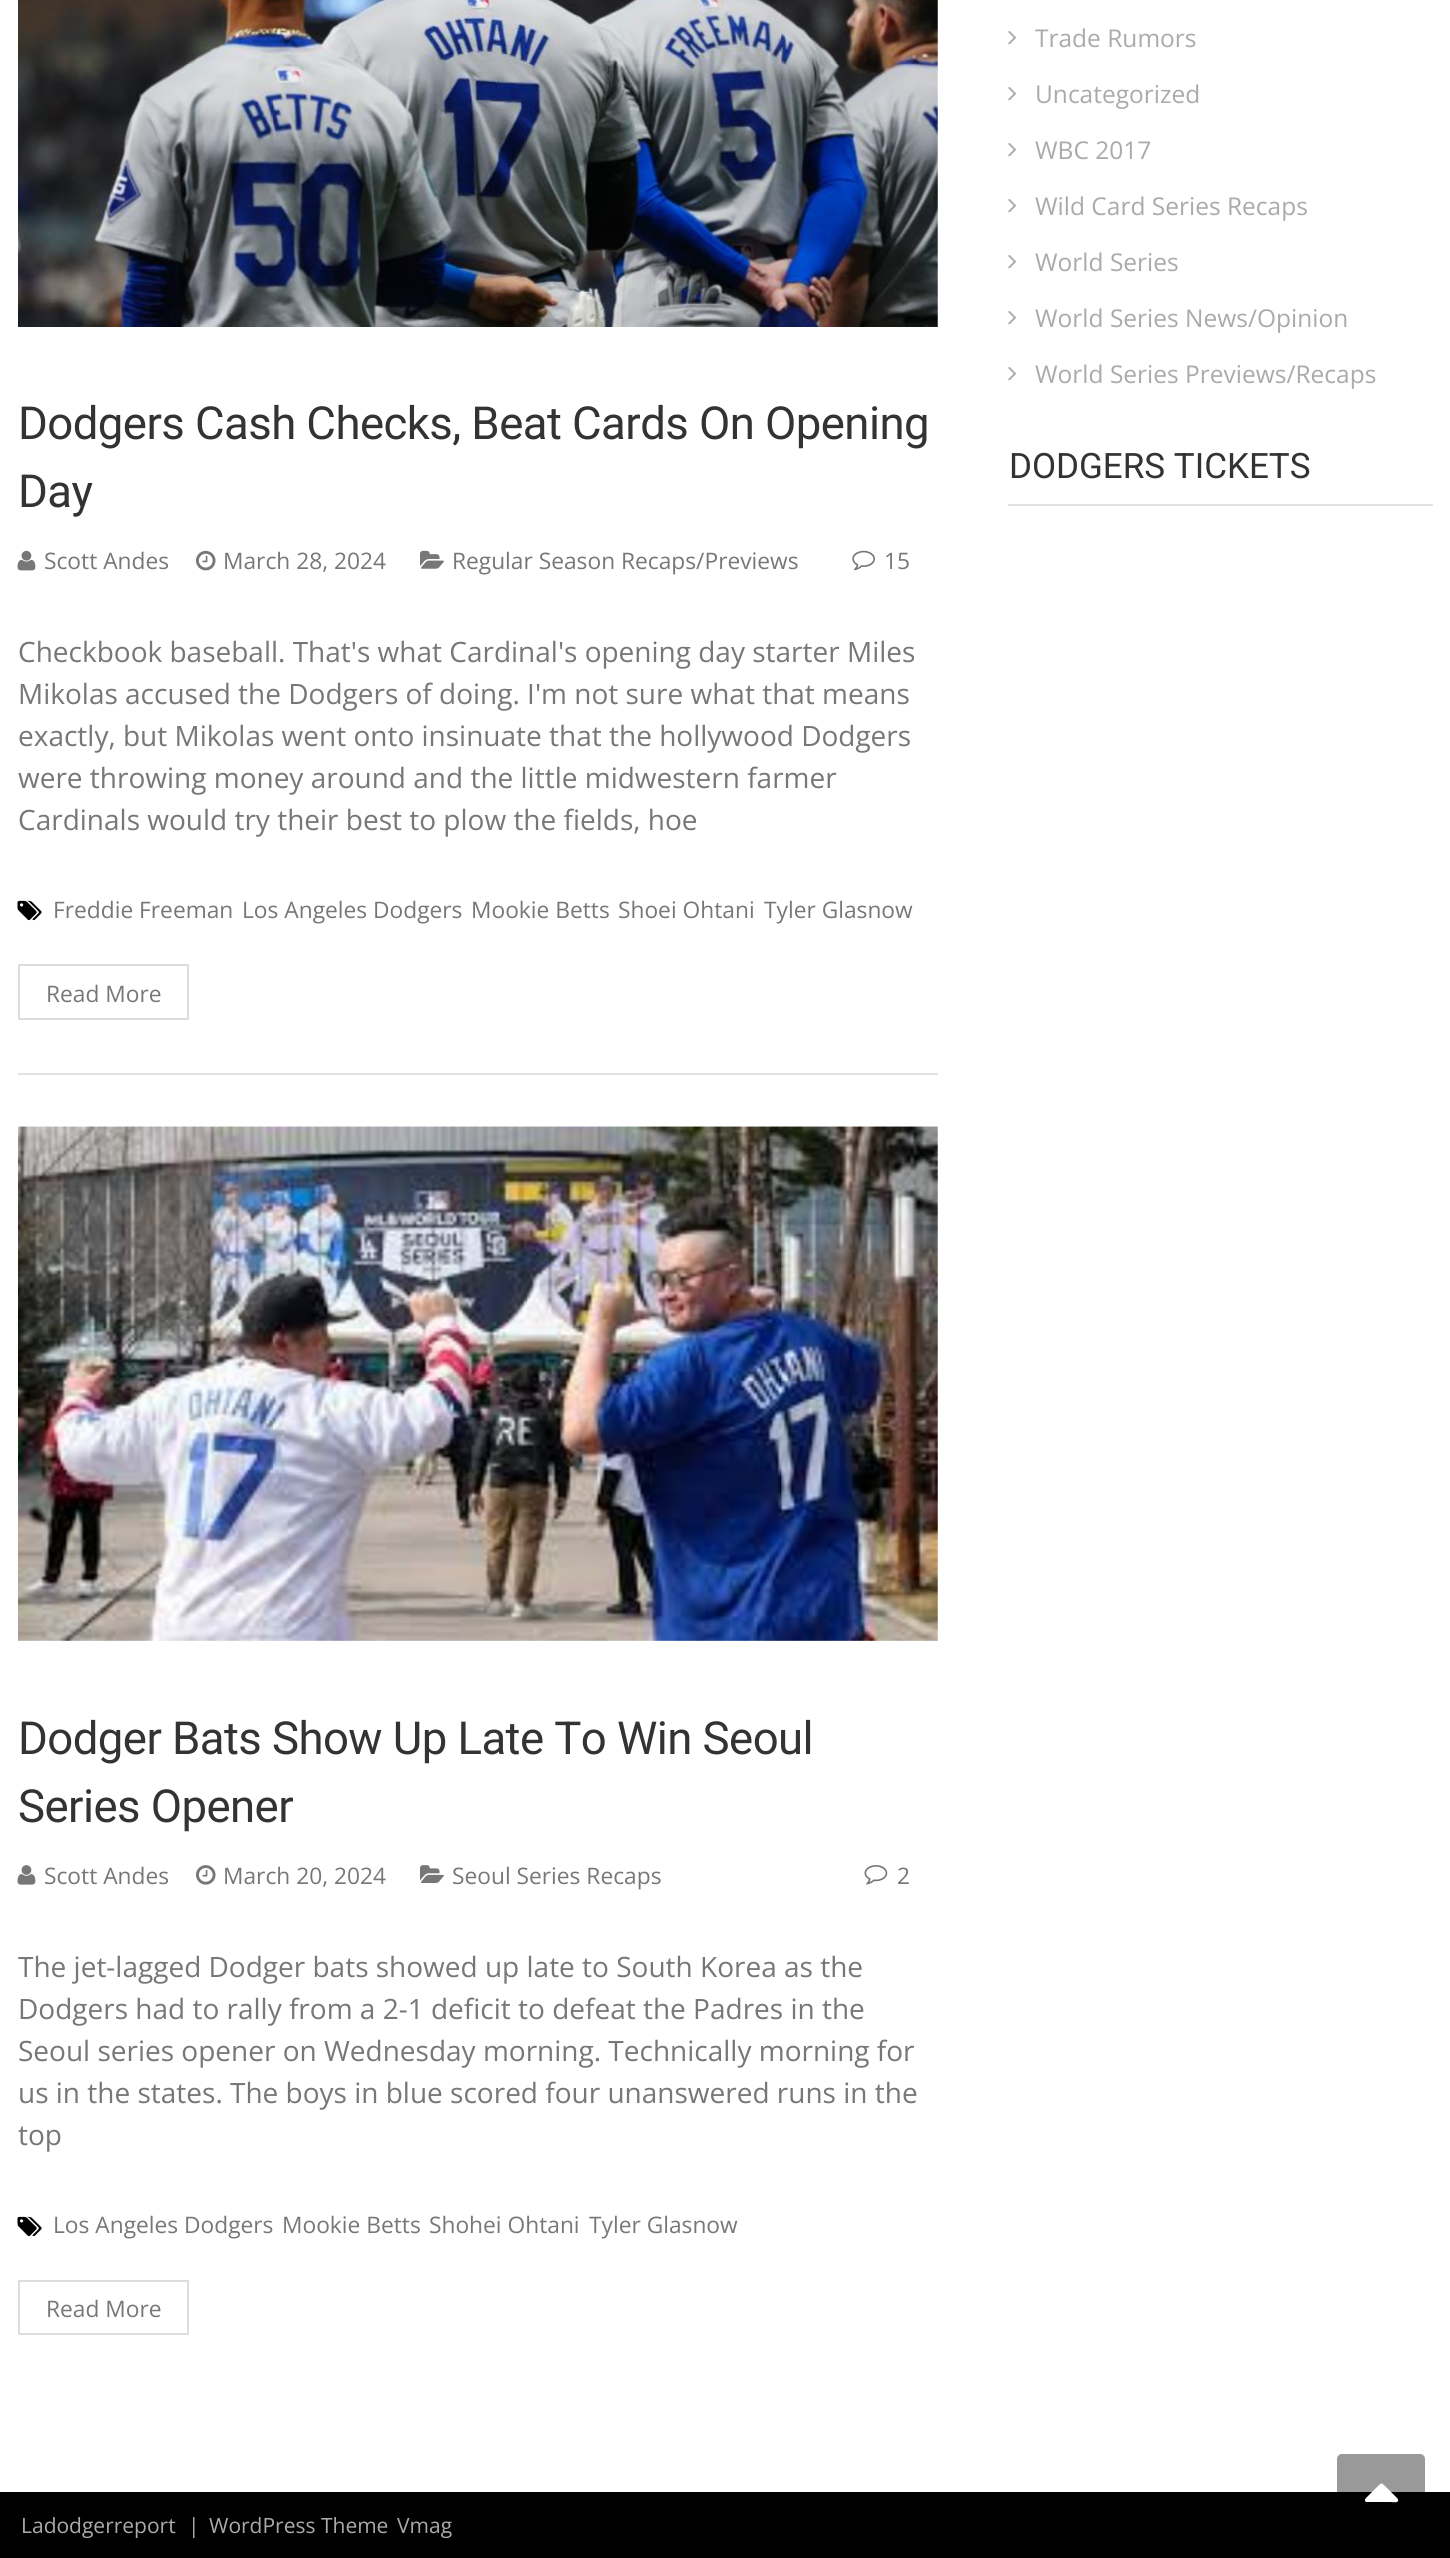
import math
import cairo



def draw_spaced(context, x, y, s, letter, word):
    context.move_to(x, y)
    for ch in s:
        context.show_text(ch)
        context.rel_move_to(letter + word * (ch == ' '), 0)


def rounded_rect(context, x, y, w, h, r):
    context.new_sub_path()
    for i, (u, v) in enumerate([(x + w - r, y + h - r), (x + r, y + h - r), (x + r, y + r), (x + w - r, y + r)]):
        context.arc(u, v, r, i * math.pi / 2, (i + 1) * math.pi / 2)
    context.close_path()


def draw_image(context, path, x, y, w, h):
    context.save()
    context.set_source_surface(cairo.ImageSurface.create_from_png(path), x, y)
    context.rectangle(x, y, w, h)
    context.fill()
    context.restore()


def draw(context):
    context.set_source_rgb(1, 1, 1)
    context.paint()
    draw_image(context, "images/1.png", 1008, 30, 8, 15)
    draw_image(context, "images/1.png", 1008, 86, 8, 15)
    draw_image(context, "images/1.png", 1008, 142, 8, 15)
    draw_image(context, "images/1.png", 1008, 198, 8, 15)
    draw_image(context, "images/1.png", 1008, 254, 8, 15)
    draw_image(context, "images/1.png", 1008, 310, 8, 15)
    draw_image(context, "images/1.png", 1008, 366, 8, 15)
    context.set_source_rgb(225 / 255, 225 / 255, 225 / 255)
    context.rectangle(1008, 504, 425, 2)
    context.fill()
    context.rectangle(18, 1073, 920, 2)
    context.fill()
    draw_image(context, "images/2.png", 18, 0, 920, 327)
    draw_image(context, "images/3.png", 17, 550, 19, 21)
    draw_image(context, "images/4.png", 196, 550, 20, 21)
    draw_image(context, "images/5.png", 420, 550, 24, 19)
    draw_image(context, "images/6.png", 852, 550, 23, 21)
    draw_image(context, "images/7.png", 17, 900, 25, 21)
    context.rectangle(19, 965, 169, 54)
    context.set_source_rgb(221 / 255, 221 / 255, 221 / 255)
    context.stroke()
    draw_image(context, "images/8.png", 18, 1126, 920, 515)
    draw_image(context, "images/9.png", 17, 1865, 19, 20)
    draw_image(context, "images/10.png", 196, 1865, 20, 20)
    draw_image(context, "images/11.png", 420, 1865, 24, 18)
    draw_image(context, "images/12.png", 864, 1865, 24, 20)
    draw_image(context, "images/7.png", 17, 2216, 25, 21)
    context.rectangle(19, 2281, 169, 53)
    context.stroke()
    context.set_source_rgb(0, 0, 0)
    context.rectangle(0, 2492, 1450, 66)
    context.fill()
    context.set_source_rgba(0, 0, 0, 0.4)
    rounded_rect(context, 1337, 2454, 88, 78, 5)
    context.fill()
    context.set_source_rgb(1, 1, 1)
    context.new_path()
    context.move_to(1397.5, 2498.5)
    context.line_to(1398, 2499.5)
    context.curve_to(1399.5, 2503.5, 1392, 2502, 1391, 2502)
    context.line_to(1366.5, 2502)
    context.curve_to(1365, 2502, 1364.5, 2500, 1365.5, 2498.5)
    context.line_to(1377.5, 2486.5)
    context.curve_to(1381.5, 2482.5, 1381.5, 2482.5, 1385.5, 2486.5)
    context.close_path()
    context.fill()
    context.select_font_face("Open Sans")
    context.set_font_size(24.5)
    context.set_source_rgb(170 / 255, 170 / 255, 170 / 255)
    context.move_to(1035, 47)
    context.show_text("Trade Rumors")
    context.move_to(1035, 103)
    context.show_text("Uncategorized")
    context.move_to(1035, 159)
    context.show_text("WBC 2017")
    context.move_to(1035, 215)
    context.show_text("Wild Card Series Recaps")
    context.move_to(1035, 271)
    context.show_text("World Series")
    context.move_to(1035, 327)
    context.show_text("World Series News/Opinion")
    context.move_to(1035, 383)
    context.show_text("World Series Previews/Recaps")
    context.select_font_face("Roboto")
    context.set_font_size(35)
    context.set_source_rgb(51 / 255, 51 / 255, 51 / 255)
    context.move_to(1009, 478)
    context.show_text("DODGERS TICKETS")
    context.set_font_size(45.5)
    draw_spaced(context, 18, 439, "Dodgers Cash Checks, Beat Cards On Opening", -0.55, 0)
    draw_spaced(context, 18, 507, "Day", -0.55, 0)
    context.select_font_face("Open Sans")
    context.set_font_size(22.75)
    context.set_source_rgb(119 / 255, 119 / 255, 119 / 255)
    context.move_to(44, 569)
    context.show_text("Scott Andes")
    context.move_to(223, 569)
    context.show_text("March 28, 2024")
    context.move_to(452, 569)
    context.show_text("Regular Season Recaps/Previews")
    context.move_to(884, 569)
    context.show_text("15")
    context.set_font_size(28)
    context.move_to(18, 662)
    context.show_text("Checkbook baseball. That's what Cardinal's opening day starter Miles")
    context.move_to(18, 704)
    context.show_text("Mikolas accused the Dodgers of doing. I'm not sure what that means")
    context.move_to(18, 746)
    context.show_text("exactly, but Mikolas went onto insinuate that the hollywood Dodgers")
    context.move_to(18, 788)
    context.show_text("were throwing money around and the little midwestern farmer")
    context.move_to(18, 830)
    context.show_text("Cardinals would try their best to plow the fields, hoe")
    context.set_font_size(22.75)
    context.move_to(53, 918)
    context.show_text("Freddie Freeman")
    context.move_to(242, 918)
    context.show_text("Los Angeles Dodgers")
    context.move_to(471, 918)
    context.show_text("Mookie Betts")
    context.move_to(618, 918)
    context.show_text("Shoei Ohtani")
    context.move_to(764, 918)
    context.show_text("Tyler Glasnow")
    context.move_to(46, 1002)
    context.show_text("Read More")
    context.select_font_face("Roboto")
    context.set_font_size(45.5)
    context.set_source_rgb(51 / 255, 51 / 255, 51 / 255)
    draw_spaced(context, 18, 1754, "Dodger Bats Show Up Late To Win Seoul", -0.55, 0)
    draw_spaced(context, 18, 1822, "Series Opener", -0.55, 0)
    context.select_font_face("Open Sans")
    context.set_font_size(22.75)
    context.set_source_rgb(119 / 255, 119 / 255, 119 / 255)
    context.move_to(44, 1884)
    context.show_text("Scott Andes")
    context.move_to(223, 1884)
    context.show_text("March 20, 2024")
    context.move_to(452, 1884)
    context.show_text("Seoul Series Recaps")
    context.move_to(897, 1884)
    context.show_text("2")
    context.set_font_size(28)
    context.move_to(18, 1977)
    context.show_text("The jet-lagged Dodger bats showed up late to South Korea as the")
    context.move_to(18, 2019)
    context.show_text("Dodgers had to rally from a 2-1 deficit to defeat the Padres in the")
    context.move_to(18, 2061)
    context.show_text("Seoul series opener on Wednesday morning. Technically morning for")
    context.move_to(18, 2103)
    context.show_text("us in the states. The boys in blue scored four unanswered runs in the")
    context.move_to(18, 2145)
    context.show_text("top")
    context.set_font_size(22.75)
    context.move_to(53, 2233)
    context.show_text("Los Angeles Dodgers")
    context.move_to(282, 2233)
    context.show_text("Mookie Betts")
    context.move_to(429, 2233)
    context.show_text("Shohei Ohtani")
    context.move_to(589, 2233)
    context.show_text("Tyler Glasnow")
    context.move_to(46, 2317)
    context.show_text("Read More")
    context.set_font_size(21)
    context.set_source_rgb(170 / 255, 170 / 255, 170 / 255)
    context.move_to(21, 2533)
    context.show_text("Ladodgerreport")
    context.move_to(188, 2533)
    context.show_text("|")
    context.move_to(209, 2533)
    context.show_text("WordPress Theme")
    context.move_to(397, 2533)
    context.show_text("Vmag")


surface = cairo.ImageSurface(cairo.Format.RGB24, 1450, 2558)
context = cairo.Context(surface)
options = cairo.FontOptions()
options.set_hint_metrics(cairo.HintMetrics.OFF)
options.set_hint_style(cairo.HintStyle.NONE)
context.set_font_options(options)
context.set_miter_limit(4)
draw(context)
surface.write_to_png("out.png")
